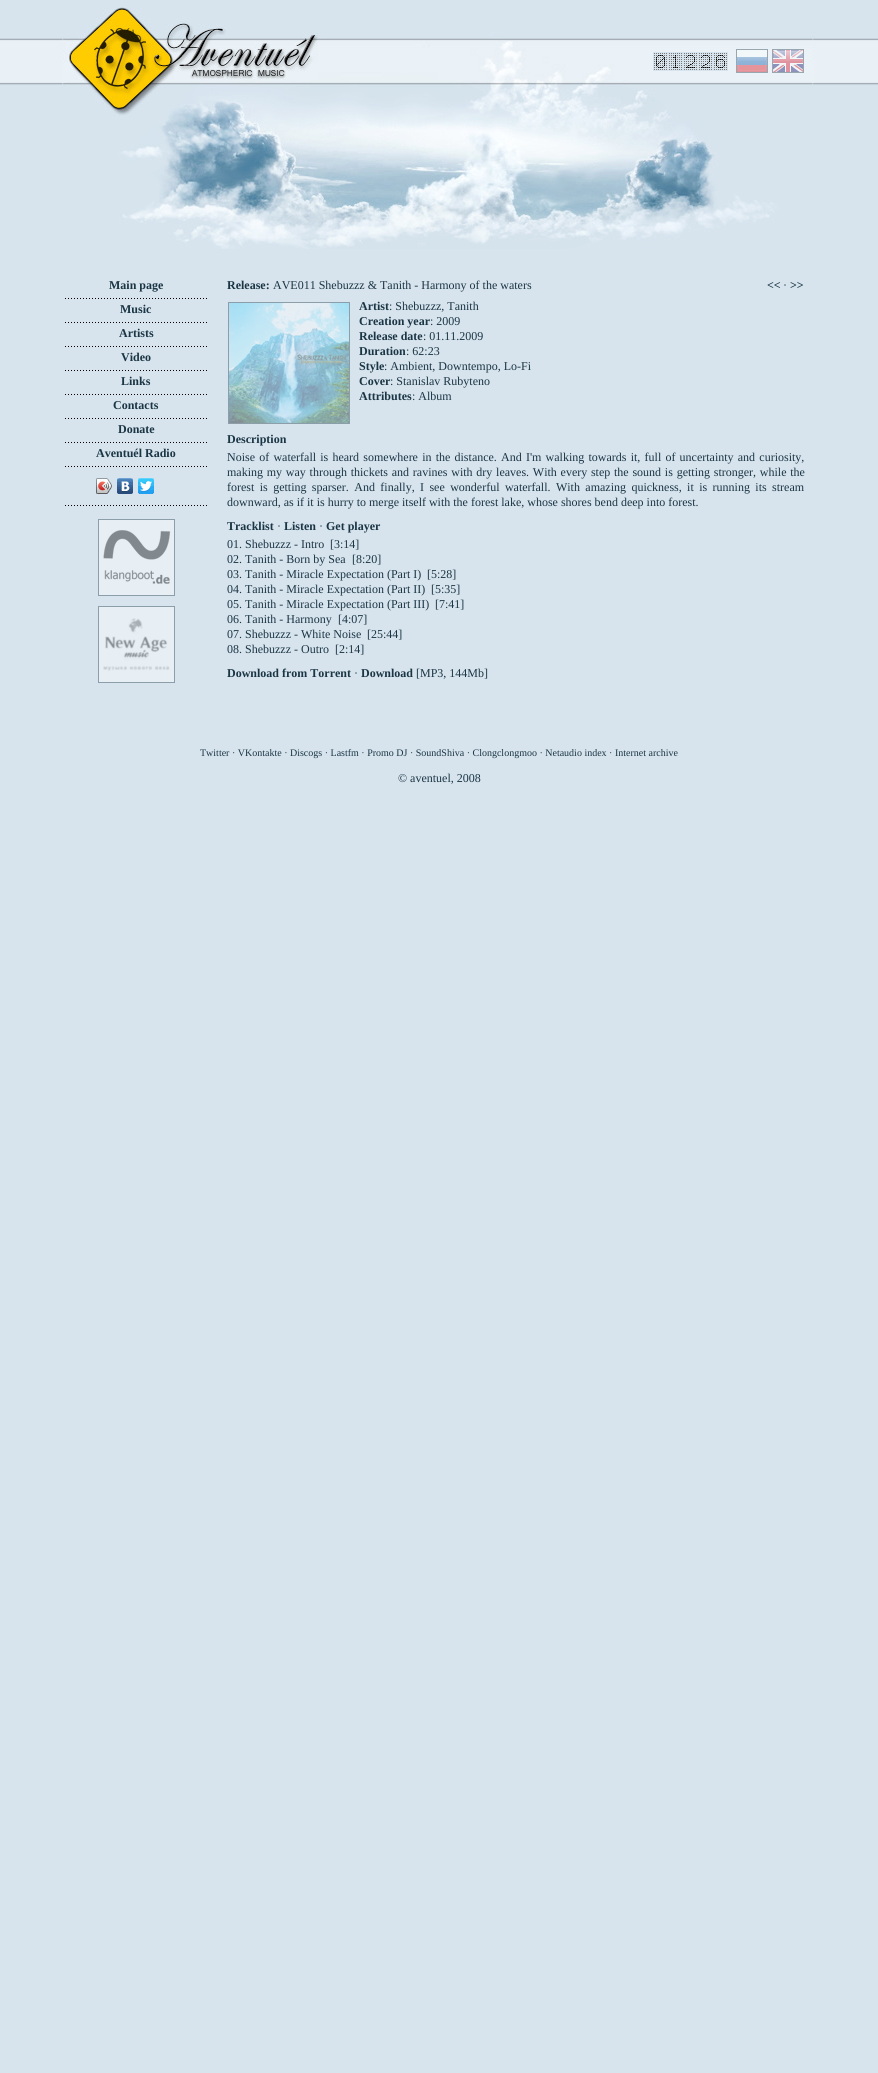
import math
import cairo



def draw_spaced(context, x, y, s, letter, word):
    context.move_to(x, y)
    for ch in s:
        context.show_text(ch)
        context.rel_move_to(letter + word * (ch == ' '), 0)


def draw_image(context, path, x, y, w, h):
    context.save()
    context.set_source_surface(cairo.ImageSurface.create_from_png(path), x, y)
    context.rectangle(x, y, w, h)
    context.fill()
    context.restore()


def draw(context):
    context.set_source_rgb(215 / 255, 228 / 255, 238 / 255)
    context.paint()
    draw_image(context, "images/1.png", 0, 38, 878, 47)
    draw_image(context, "images/2.png", 62, 7, 752, 242)
    context.rectangle(736.5, 49.5, 31, 23)
    context.set_source_rgb(151 / 255, 166 / 255, 175 / 255)
    context.set_line_width(1)
    context.stroke()
    context.rectangle(772.5, 49.5, 31, 23)
    context.stroke()
    draw_image(context, "images/3.png", 653, 52, 15, 19)
    draw_image(context, "images/4.png", 668, 52, 15, 19)
    draw_image(context, "images/5.png", 683, 52, 15, 19)
    draw_image(context, "images/5.png", 698, 52, 15, 19)
    draw_image(context, "images/6.png", 713, 52, 15, 19)
    draw_image(context, "images/7.png", 737, 50, 30, 22)
    draw_image(context, "images/8.png", 773, 50, 30, 22)
    draw_image(context, "images/9.png", 65, 298, 142, 1)
    draw_image(context, "images/9.png", 65, 322, 142, 1)
    draw_image(context, "images/9.png", 65, 346, 142, 1)
    draw_image(context, "images/9.png", 65, 370, 142, 1)
    draw_image(context, "images/9.png", 65, 394, 142, 1)
    draw_image(context, "images/9.png", 65, 418, 142, 1)
    draw_image(context, "images/9.png", 65, 442, 142, 1)
    draw_image(context, "images/9.png", 65, 466, 142, 1)
    draw_image(context, "images/10.png", 96, 478, 16, 16)
    draw_image(context, "images/11.png", 96, 478, 16, 16)
    draw_image(context, "images/12.png", 117, 478, 16, 16)
    draw_image(context, "images/13.png", 138, 478, 16, 16)
    draw_image(context, "images/9.png", 65, 505, 142, 1)
    context.rectangle(98.5, 519.5, 76, 76)
    context.set_source_rgb(139 / 255, 158 / 255, 170 / 255)
    context.stroke()
    draw_image(context, "images/14.png", 99, 520, 75, 75)
    context.rectangle(98.5, 606.5, 76, 76)
    context.stroke()
    draw_image(context, "images/15.png", 99, 607, 75, 75)
    context.rectangle(228.5, 302.5, 121, 121)
    context.stroke()
    draw_image(context, "images/16.png", 229, 303, 120, 120)
    context.select_font_face("Liberation Serif", cairo.FontSlant.NORMAL, cairo.FontWeight.BOLD)
    context.set_font_size(12)
    context.set_source_rgb(26 / 255, 53 / 255, 67 / 255)
    context.move_to(109, 289)
    context.show_text("Main page")
    context.move_to(120, 313)
    context.show_text("Music")
    context.move_to(119, 337)
    context.show_text("Artists")
    context.move_to(121, 361)
    context.show_text("Video")
    context.move_to(121, 385)
    context.show_text("Links")
    context.move_to(113, 409)
    context.show_text("Contacts")
    context.move_to(118, 433)
    context.show_text("Donate")
    context.move_to(96, 457)
    context.show_text("Aventuél Radio")
    context.move_to(227, 289)
    context.show_text("Release:")
    context.select_font_face("Liberation Serif")
    context.move_to(273, 289)
    context.show_text("AVE011 Shebuzzz & Tanith - Harmony of the waters")
    context.select_font_face("Liberation Serif", cairo.FontSlant.NORMAL, cairo.FontWeight.BOLD)
    context.move_to(767, 289)
    context.show_text("<<")
    context.select_font_face("Liberation Serif")
    context.move_to(783, 289)
    context.show_text("·")
    context.select_font_face("Liberation Serif", cairo.FontSlant.NORMAL, cairo.FontWeight.BOLD)
    context.move_to(790, 289)
    context.show_text(">>")
    context.move_to(359, 310)
    context.show_text("Artist")
    context.select_font_face("Liberation Serif")
    context.move_to(389, 310)
    context.show_text(": Shebuzzz, Tanith")
    context.select_font_face("Liberation Serif", cairo.FontSlant.NORMAL, cairo.FontWeight.BOLD)
    context.move_to(359, 325)
    context.show_text("Creation year")
    context.select_font_face("Liberation Serif")
    context.move_to(430, 325)
    context.show_text(": 2009")
    context.select_font_face("Liberation Serif", cairo.FontSlant.NORMAL, cairo.FontWeight.BOLD)
    context.move_to(359, 340)
    context.show_text("Release date")
    context.select_font_face("Liberation Serif")
    context.move_to(423, 340)
    context.show_text(": 01.11.2009")
    context.select_font_face("Liberation Serif", cairo.FontSlant.NORMAL, cairo.FontWeight.BOLD)
    context.move_to(359, 355)
    context.show_text("Duration")
    context.select_font_face("Liberation Serif")
    context.move_to(406, 355)
    context.show_text(": 62:23")
    context.select_font_face("Liberation Serif", cairo.FontSlant.NORMAL, cairo.FontWeight.BOLD)
    context.move_to(359, 370)
    context.show_text("Style")
    context.select_font_face("Liberation Serif")
    context.move_to(384, 370)
    context.show_text(": Ambient, Downtempo, Lo-Fi")
    context.select_font_face("Liberation Serif", cairo.FontSlant.NORMAL, cairo.FontWeight.BOLD)
    context.move_to(359, 385)
    context.show_text("Cover")
    context.select_font_face("Liberation Serif")
    context.move_to(390, 385)
    context.show_text(": Stanislav Rubyteno")
    context.select_font_face("Liberation Serif", cairo.FontSlant.NORMAL, cairo.FontWeight.BOLD)
    context.move_to(359, 400)
    context.show_text("Attributes")
    context.select_font_face("Liberation Serif")
    context.move_to(412, 400)
    context.show_text(": Album")
    context.select_font_face("Liberation Serif", cairo.FontSlant.NORMAL, cairo.FontWeight.BOLD)
    context.move_to(227, 443)
    context.show_text("Description")
    context.select_font_face("Liberation Serif")
    draw_spaced(context, 227, 461, "Noise of waterfall is heard somewhere in the distance. And I'm walking towards it, full of uncertainty and curiosity,", 0, 1.2)
    draw_spaced(context, 227, 476, "making my way through thickets and ravines with dry leaves. With every step the sound is getting stronger, while the", 0, 0.75)
    draw_spaced(context, 227, 491, "forest is getting sparser. And finally, I see wonderful waterfall. With amazing quickness, it is running its stream", 0, 2.4)
    context.move_to(227, 506)
    context.show_text("downward, as if it is hurry to merge itself with the forest lake, whose shores bend deep into forest.")
    context.select_font_face("Liberation Serif", cairo.FontSlant.NORMAL, cairo.FontWeight.BOLD)
    context.move_to(227, 530)
    context.show_text("Tracklist")
    context.select_font_face("Liberation Serif")
    context.move_to(277, 530)
    context.show_text("·")
    context.select_font_face("Liberation Serif", cairo.FontSlant.NORMAL, cairo.FontWeight.BOLD)
    context.move_to(284, 530)
    context.show_text("Listen")
    context.select_font_face("Liberation Serif")
    context.move_to(319, 530)
    context.show_text("·")
    context.select_font_face("Liberation Serif", cairo.FontSlant.NORMAL, cairo.FontWeight.BOLD)
    context.move_to(326, 530)
    context.show_text("Get player")
    context.select_font_face("Liberation Serif")
    context.move_to(227, 548)
    context.show_text("01. Shebuzzz - Intro")
    context.move_to(330, 548)
    context.show_text("[3:14]")
    context.move_to(227, 563)
    context.show_text("02. Tanith - Born by Sea")
    context.move_to(352, 563)
    context.show_text("[8:20]")
    context.move_to(227, 578)
    context.show_text("03. Tanith - Miracle Expectation (Part I)")
    context.move_to(427, 578)
    context.show_text("[5:28]")
    context.move_to(227, 593)
    context.show_text("04. Tanith - Miracle Expectation (Part II)")
    context.move_to(431, 593)
    context.show_text("[5:35]")
    context.move_to(227, 608)
    context.show_text("05. Tanith - Miracle Expectation (Part III)")
    context.move_to(435, 608)
    context.show_text("[7:41]")
    context.move_to(227, 623)
    context.show_text("06. Tanith - Harmony")
    context.move_to(338, 623)
    context.show_text("[4:07]")
    context.move_to(227, 638)
    context.show_text("07. Shebuzzz - White Noise")
    context.move_to(367, 638)
    context.show_text("[25:44]")
    context.move_to(227, 653)
    context.show_text("08. Shebuzzz - Outro")
    context.move_to(335, 653)
    context.show_text("[2:14]")
    context.select_font_face("Liberation Serif", cairo.FontSlant.NORMAL, cairo.FontWeight.BOLD)
    context.move_to(227, 677)
    context.show_text("Download from Torrent")
    context.select_font_face("Liberation Serif")
    context.move_to(354, 677)
    context.show_text("·")
    context.select_font_face("Liberation Serif", cairo.FontSlant.NORMAL, cairo.FontWeight.BOLD)
    context.move_to(361, 677)
    context.show_text("Download")
    context.select_font_face("Liberation Serif")
    context.move_to(416, 677)
    context.show_text("[MP3, 144Mb]")
    context.set_font_size(10)
    context.move_to(200, 756)
    context.show_text("Twitter · VKontakte · Discogs · Lastfm · Promo DJ · SoundShiva · Clongclongmoo · Netaudio index · Internet archive")
    context.set_font_size(12)
    context.move_to(398, 782)
    context.show_text("© aventuel, 2008")


surface = cairo.ImageSurface(cairo.Format.RGB24, 878, 2073)
context = cairo.Context(surface)
options = cairo.FontOptions()
options.set_hint_metrics(cairo.HintMetrics.OFF)
options.set_hint_style(cairo.HintStyle.NONE)
context.set_font_options(options)
context.set_miter_limit(4)
draw(context)
surface.write_to_png("out.png")
